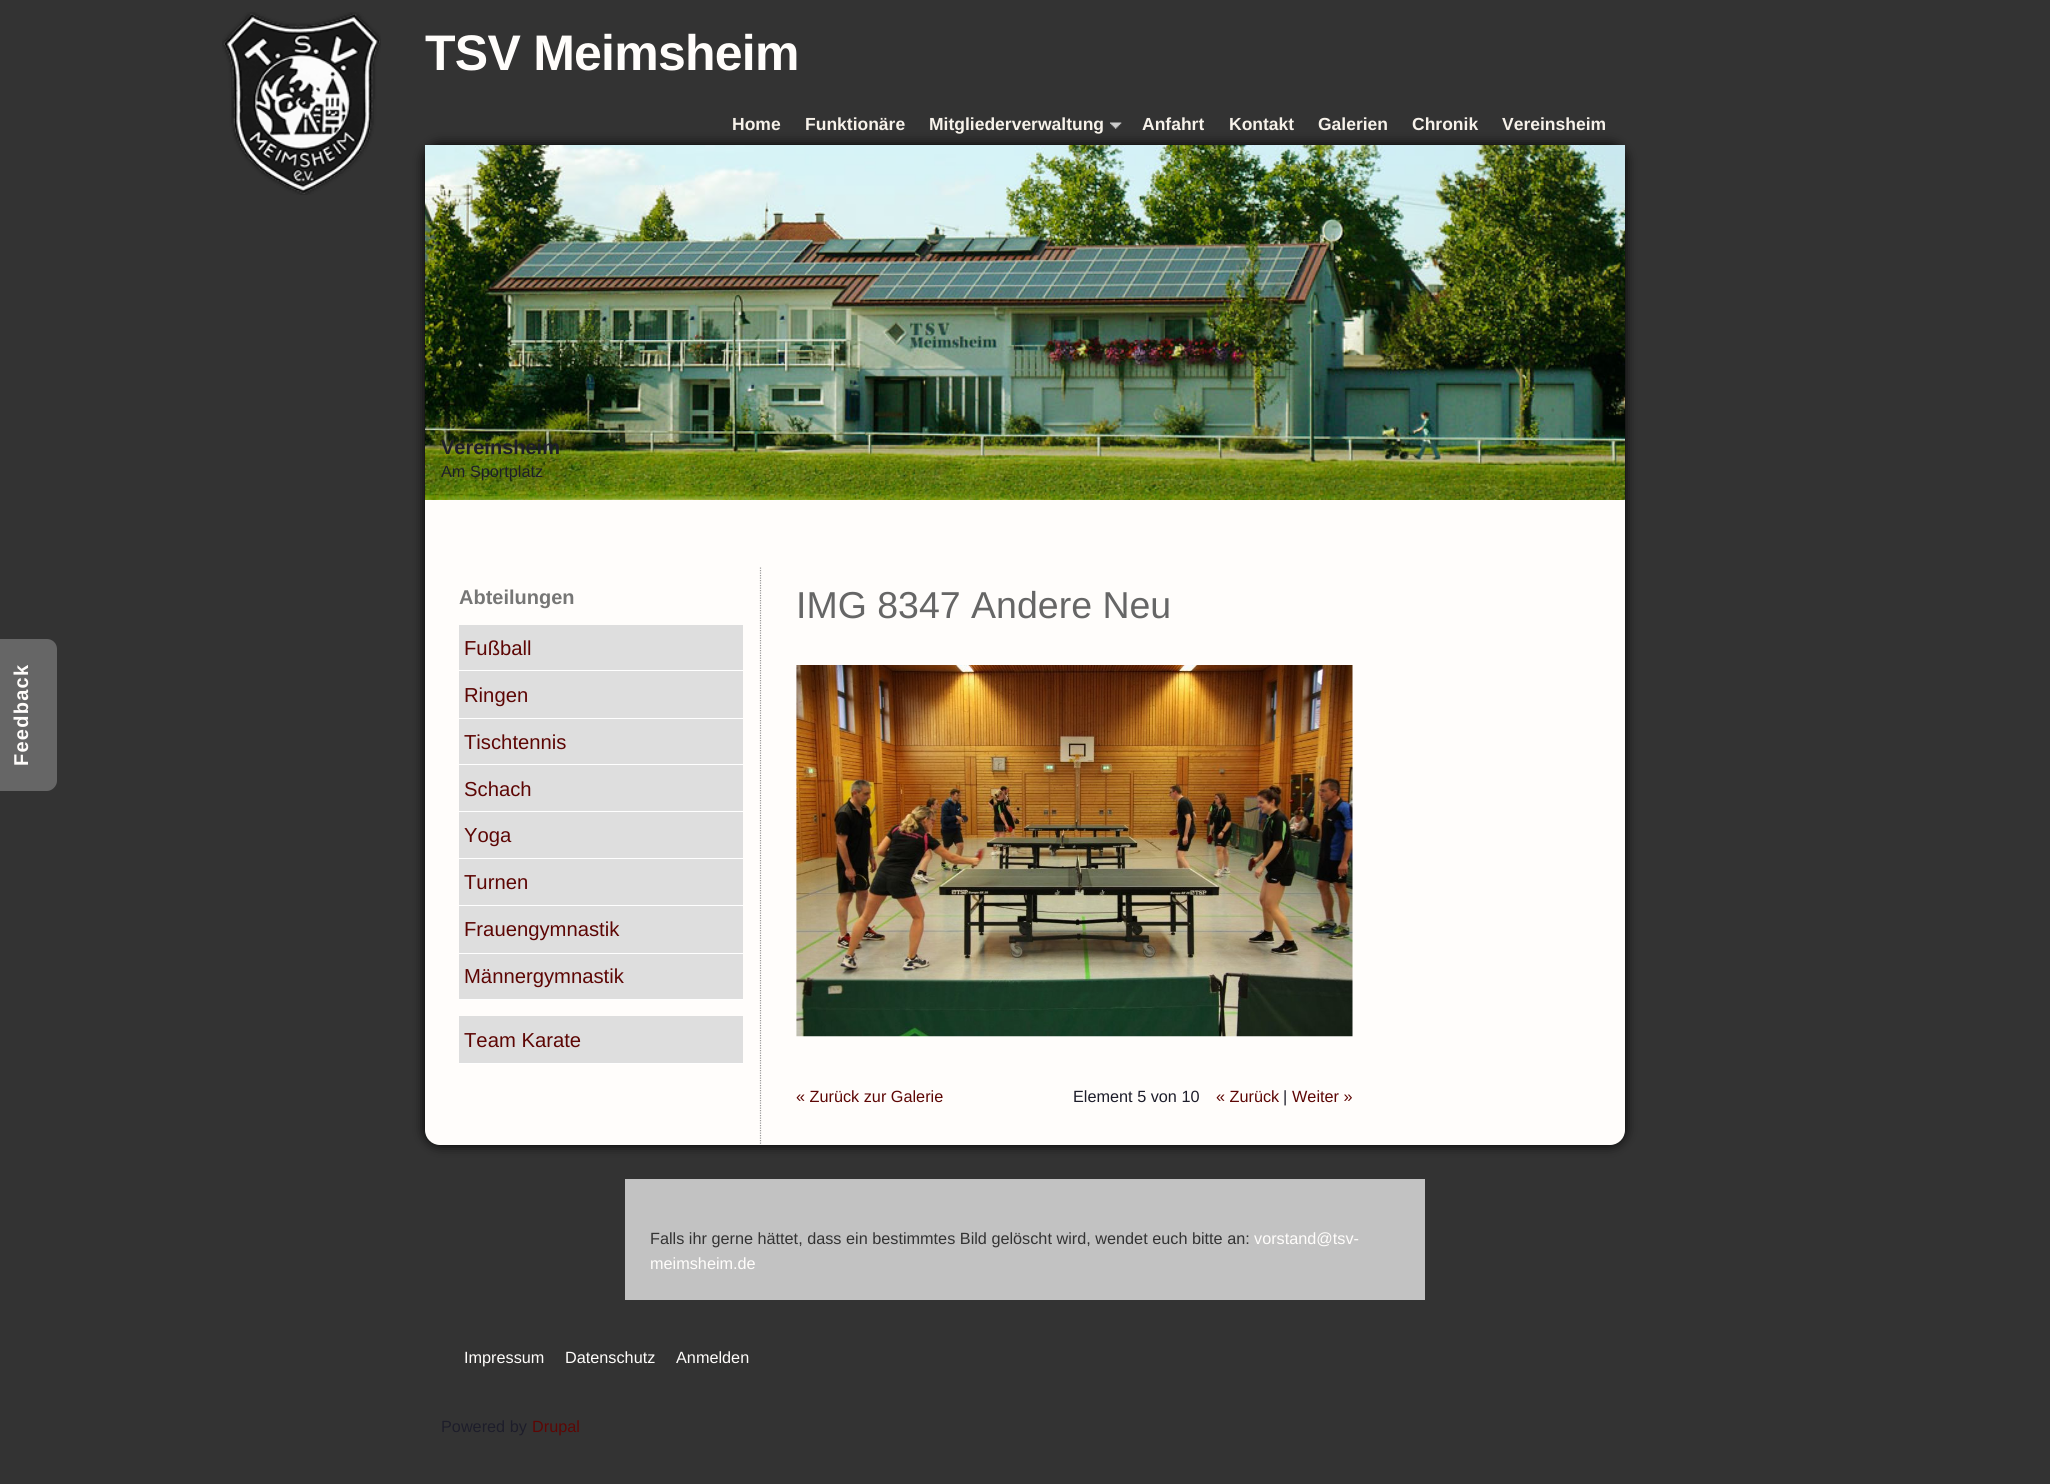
import math
import cairo



def draw_spaced(context, x, y, s, letter, word):
    context.move_to(x, y)
    for ch in s:
        context.show_text(ch)
        context.rel_move_to(letter + word * (ch == ' '), 0)


def rounded_rect(context, x, y, w, h, r):
    context.new_sub_path()
    for i, (u, v) in enumerate([(x + w - r, y + h - r), (x + r, y + h - r), (x + r, y + r), (x + w - r, y + r)]):
        context.arc(u, v, r, i * math.pi / 2, (i + 1) * math.pi / 2)
    context.close_path()


def draw_shadow(context, x, y, w, h, r, blur, alpha):
    context.push_group_with_content(cairo.Content.ALPHA)
    context.set_operator(cairo.Operator.SOURCE)
    for i in range(15, -16, -2):
        e = blur * i / 6
        if min(w, h) + 2 * e > 0:
            context.set_source_rgba(0, 0, 0, alpha * math.erfc((i - 1) / 8.5) / 2)
            rounded_rect(context, x - e, y - e, w + 2 * e, h + 2 * e, max(0, min(r + e + blur * .6, min(w, h) / 2 + e)))
            context.fill()
    context.mask(context.pop_group())


def draw_image(context, path, x, y, w, h):
    context.save()
    context.set_source_surface(cairo.ImageSurface.create_from_png(path), x, y)
    context.rectangle(x, y, w, h)
    context.fill()
    context.restore()


def draw(context):
    context.set_source_rgb(51 / 255, 51 / 255, 51 / 255)
    context.paint()
    context.set_source_rgb(102 / 255, 102 / 255, 102 / 255)
    context.new_path()
    context.move_to(-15, 791)
    context.line_to(-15, 639)
    context.line_to(47, 639)
    context.curve_to(52, 639, 57, 643, 57, 649)
    context.line_to(57, 781)
    context.curve_to(57, 786, 52, 791, 47, 791)
    context.close_path()
    context.fill()
    draw_image(context, "images/1.png", 222, 12, 159, 183)
    draw_image(context, "images/2.png", 1110, 122, 12, 7)
    context.set_source_rgb(0, 0, 0)
    draw_shadow(context, 425, 145, 1200, 1000, 15, 6, 1)
    context.set_source_rgb(1, 253 / 255, 251 / 255)
    rounded_rect(context, 425, 145, 1200, 1000, 15)
    context.fill()
    draw_image(context, "images/3.png", 425, 145, 1200, 355)
    context.new_path()
    context.move_to(760.5, 567.5)
    context.line_to(760.5, 1145)
    context.set_source_rgb(153 / 255, 153 / 255, 153 / 255)
    context.set_line_width(1.2)
    context.set_dash([1.25, 1.25])
    context.stroke()
    context.set_source_rgb(222 / 255, 222 / 255, 222 / 255)
    context.rectangle(459, 625, 284, 45)
    context.fill()
    context.set_source_rgb(1, 1, 1)
    context.rectangle(459, 670, 284, 1)
    context.fill()
    context.set_source_rgb(222 / 255, 222 / 255, 222 / 255)
    context.rectangle(459, 671, 284, 47)
    context.fill()
    context.set_source_rgb(1, 1, 1)
    context.rectangle(459, 718, 284, 1)
    context.fill()
    context.set_source_rgb(222 / 255, 222 / 255, 222 / 255)
    context.rectangle(459, 719, 284, 45)
    context.fill()
    context.set_source_rgb(1, 1, 1)
    context.rectangle(459, 764, 284, 1)
    context.fill()
    context.set_source_rgb(222 / 255, 222 / 255, 222 / 255)
    context.rectangle(459, 765, 284, 93)
    context.fill()
    context.set_source_rgb(1, 1, 1)
    context.rectangle(459, 811, 284, 1)
    context.fill()
    context.rectangle(459, 858, 284, 1)
    context.fill()
    context.set_source_rgb(222 / 255, 222 / 255, 222 / 255)
    context.rectangle(459, 859, 284, 46)
    context.fill()
    context.set_source_rgb(1, 1, 1)
    context.rectangle(459, 905, 284, 1)
    context.fill()
    context.set_source_rgb(222 / 255, 222 / 255, 222 / 255)
    context.rectangle(459, 906, 284, 47)
    context.fill()
    context.set_source_rgb(1, 1, 1)
    context.rectangle(459, 953, 284, 1)
    context.fill()
    context.set_source_rgb(222 / 255, 222 / 255, 222 / 255)
    context.rectangle(459, 954, 284, 45)
    context.fill()
    context.set_source_rgb(1, 1, 1)
    context.rectangle(459, 999, 284, 1)
    context.fill()
    context.set_source_rgb(222 / 255, 222 / 255, 222 / 255)
    context.rectangle(459, 1016, 284, 47)
    context.fill()
    context.set_source_rgb(1, 1, 1)
    context.rectangle(459, 1063, 284, 1)
    context.fill()
    draw_image(context, "images/4.png", 796, 665, 557, 372)
    context.set_source_rgb(194 / 255, 194 / 255, 194 / 255)
    context.rectangle(625, 1179, 800, 121)
    context.fill()
    context.select_font_face("Liberation Sans", cairo.FontSlant.NORMAL, cairo.FontWeight.BOLD)
    context.set_font_size(20)
    context.set_source_rgb(1, 253 / 255, 251 / 255)
    context.save()
    context.translate(28, 766)
    context.rotate(-90 * math.pi / 180)
    draw_spaced(context, 0, 0, "Feedback", 1.25, 0)
    context.restore()
    context.set_font_size(50)
    draw_spaced(context, 425, 70, "TSV Meimsheim", -0.75, 0)
    context.set_font_size(17.5)
    context.set_source_rgb(247 / 255, 242 / 255, 234 / 255)
    context.move_to(732, 130)
    context.show_text("Home")
    context.move_to(805, 130)
    context.show_text("Funktionäre")
    context.move_to(929, 130)
    context.show_text("Mitgliederverwaltung")
    context.move_to(1142, 130)
    context.show_text("Anfahrt")
    context.move_to(1229, 130)
    context.show_text("Kontakt")
    context.move_to(1318, 130)
    context.show_text("Galerien")
    context.move_to(1412, 130)
    context.show_text("Chronik")
    context.move_to(1502, 130)
    context.show_text("Vereinsheim")
    context.set_font_size(20)
    context.set_source_rgb(29 / 255, 29 / 255, 42 / 255)
    context.move_to(441, 454)
    context.show_text("Vereinsheim")
    context.select_font_face("Liberation Sans")
    context.set_font_size(16.25)
    context.move_to(441, 477)
    context.show_text("Am Sportplatz")
    context.select_font_face("Liberation Sans", cairo.FontSlant.NORMAL, cairo.FontWeight.BOLD)
    context.set_font_size(20)
    context.set_source_rgb(118 / 255, 118 / 255, 117 / 255)
    context.move_to(459, 604)
    context.show_text("Abteilungen")
    context.select_font_face("Liberation Sans")
    context.set_font_size(20.25)
    context.set_source_rgb(93 / 255, 6 / 255, 4 / 255)
    context.move_to(464, 655)
    context.show_text("Fußball")
    context.move_to(464, 702)
    context.show_text("Ringen")
    context.move_to(464, 749)
    context.show_text("Tischtennis")
    context.move_to(464, 796)
    context.show_text("Schach")
    context.move_to(464, 842)
    context.show_text("Yoga")
    context.move_to(464, 889)
    context.show_text("Turnen")
    context.move_to(464, 936)
    context.show_text("Frauengymnastik")
    context.move_to(464, 983)
    context.show_text("Männergymnastik")
    context.move_to(464, 1047)
    context.show_text("Team Karate")
    context.set_font_size(37.5)
    context.set_source_rgb(102 / 255, 102 / 255, 102 / 255)
    context.move_to(796, 618)
    context.show_text("IMG 8347 Andere Neu")
    context.set_font_size(16.25)
    context.set_source_rgb(93 / 255, 6 / 255, 4 / 255)
    context.move_to(796, 1102)
    context.show_text("« Zurück zur Galerie")
    context.set_source_rgb(29 / 255, 29 / 255, 42 / 255)
    context.move_to(1073, 1102)
    context.show_text("Element 5 von 10")
    context.set_source_rgb(93 / 255, 6 / 255, 4 / 255)
    context.move_to(1216, 1102)
    context.show_text("« Zurück")
    context.set_source_rgb(29 / 255, 29 / 255, 42 / 255)
    context.move_to(1283, 1102)
    context.show_text("|")
    context.set_source_rgb(93 / 255, 6 / 255, 4 / 255)
    context.move_to(1292, 1102)
    context.show_text("Weiter »")
    context.set_source_rgb(51 / 255, 51 / 255, 51 / 255)
    context.move_to(650, 1244)
    context.show_text("Falls ihr gerne hättet, dass ein bestimmtes Bild gelöscht wird, wendet euch bitte an:")
    context.set_source_rgb(1, 253 / 255, 251 / 255)
    context.move_to(1254, 1244)
    context.show_text("vorstand@tsv-")
    context.move_to(650, 1269)
    context.show_text("meimsheim.de")
    context.move_to(464, 1363)
    context.show_text("Impressum")
    context.move_to(565, 1363)
    context.show_text("Datenschutz")
    context.move_to(676, 1363)
    context.show_text("Anmelden")
    context.set_source_rgb(29 / 255, 29 / 255, 42 / 255)
    context.move_to(441, 1432)
    context.show_text("Powered by")
    context.set_source_rgb(93 / 255, 6 / 255, 4 / 255)
    context.move_to(532, 1432)
    context.show_text("Drupal")


surface = cairo.ImageSurface(cairo.Format.RGB24, 2050, 1484)
context = cairo.Context(surface)
options = cairo.FontOptions()
options.set_hint_metrics(cairo.HintMetrics.OFF)
options.set_hint_style(cairo.HintStyle.NONE)
context.set_font_options(options)
context.set_miter_limit(4)
draw(context)
surface.write_to_png("out.png")
